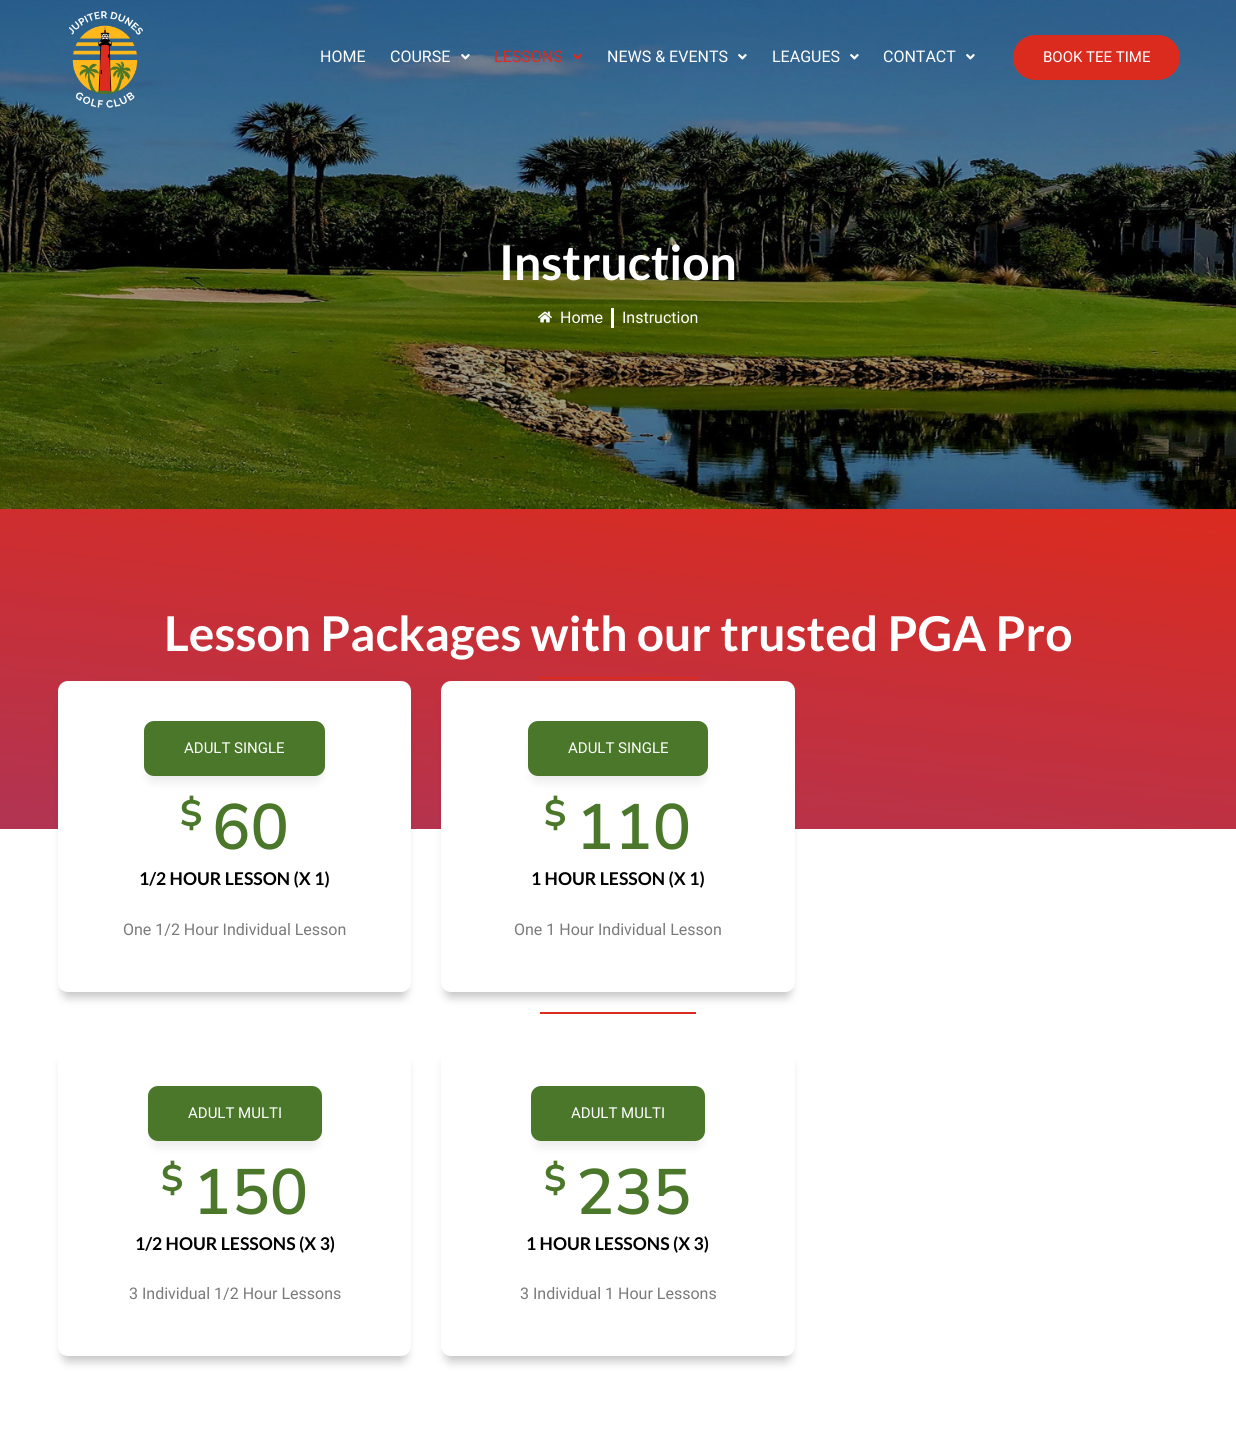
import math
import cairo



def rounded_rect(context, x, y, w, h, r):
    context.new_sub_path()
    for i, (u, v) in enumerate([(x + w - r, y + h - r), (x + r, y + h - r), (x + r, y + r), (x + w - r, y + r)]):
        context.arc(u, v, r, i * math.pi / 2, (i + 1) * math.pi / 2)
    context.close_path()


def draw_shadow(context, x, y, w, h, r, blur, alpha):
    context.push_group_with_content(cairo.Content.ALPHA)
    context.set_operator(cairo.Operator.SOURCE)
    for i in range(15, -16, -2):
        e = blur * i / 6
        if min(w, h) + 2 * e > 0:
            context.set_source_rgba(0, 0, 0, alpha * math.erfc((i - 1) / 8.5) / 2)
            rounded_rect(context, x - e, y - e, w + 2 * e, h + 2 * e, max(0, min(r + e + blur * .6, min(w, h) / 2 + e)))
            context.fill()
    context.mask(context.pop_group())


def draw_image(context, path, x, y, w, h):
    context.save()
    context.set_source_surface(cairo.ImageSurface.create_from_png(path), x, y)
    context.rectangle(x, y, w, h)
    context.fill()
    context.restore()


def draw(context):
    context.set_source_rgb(1, 1, 1)
    context.paint()
    draw_image(context, "images/7.png", 0, 0, 1236, 509)
    draw_image(context, "images/1.png", 69, 11, 74, 97)
    draw_image(context, "images/2.png", 461, 54, 9, 6)
    draw_image(context, "images/3.png", 573, 54, 9, 6)
    draw_image(context, "images/4.png", 738, 54, 9, 6)
    draw_image(context, "images/5.png", 850, 54, 9, 6)
    draw_image(context, "images/6.png", 966, 54, 9, 6)
    context.set_source_rgb(219 / 255, 43 / 255, 31 / 255)
    rounded_rect(context, 1013, 35, 167, 45, 22.5)
    context.fill()
    draw_image(context, "images/8.png", 538, 311, 14, 12)
    context.set_source_rgb(1, 1, 1)
    context.rectangle(611, 308, 3, 20)
    context.fill()
    gradient = cairo.LinearGradient(641, 447, 595, 891)
    gradient.add_color_stop_rgba(0, 219 / 255, 43 / 255, 31 / 255, 1)
    gradient.add_color_stop_rgba(1, 177 / 255, 52 / 255, 83 / 255, 1)
    context.set_source(gradient)
    context.rectangle(0, 509, 1236, 320)
    context.fill()
    context.set_source_rgb(219 / 255, 43 / 255, 31 / 255)
    context.rectangle(538, 677, 160, 2)
    context.fill()
    context.set_source_rgb(0, 0, 0)
    draw_shadow(context, 63, 696, 343, 301, 5, 5, 0.24)
    context.set_source_rgb(1, 1, 1)
    rounded_rect(context, 58, 681, 353, 311, 10)
    context.fill()
    context.set_source_rgb(0, 0, 0)
    draw_shadow(context, 148, 735, 173, 47, 6, 5, 0.08)
    context.set_source_rgb(74 / 255, 119 / 255, 41 / 255)
    rounded_rect(context, 144, 721, 181, 55, 10)
    context.fill()
    context.set_source_rgb(0, 0, 0)
    draw_shadow(context, 446, 696, 344, 301, 5, 5, 0.24)
    context.set_source_rgb(1, 1, 1)
    rounded_rect(context, 441, 681, 354, 311, 10)
    context.fill()
    context.set_source_rgb(0, 0, 0)
    draw_shadow(context, 532, 735, 172, 47, 6, 5, 0.08)
    context.set_source_rgb(74 / 255, 119 / 255, 41 / 255)
    rounded_rect(context, 528, 721, 180, 55, 10)
    context.fill()
    context.set_source_rgb(219 / 255, 43 / 255, 31 / 255)
    context.rectangle(540, 1012, 156, 2)
    context.fill()
    context.set_source_rgb(0, 0, 0)
    draw_shadow(context, 63, 1061, 343, 300, 5, 5, 0.24)
    context.set_source_rgb(1, 1, 1)
    rounded_rect(context, 58, 1046, 353, 310, 10)
    context.fill()
    context.set_source_rgb(0, 0, 0)
    draw_shadow(context, 152, 1100, 166, 47, 6, 5, 0.08)
    context.set_source_rgb(74 / 255, 119 / 255, 41 / 255)
    rounded_rect(context, 148, 1086, 174, 55, 10)
    context.fill()
    context.set_source_rgb(0, 0, 0)
    draw_shadow(context, 446, 1061, 344, 300, 5, 5, 0.24)
    context.set_source_rgb(1, 1, 1)
    rounded_rect(context, 441, 1046, 354, 310, 10)
    context.fill()
    context.set_source_rgb(0, 0, 0)
    draw_shadow(context, 535, 1100, 166, 47, 6, 5, 0.08)
    context.set_source_rgb(74 / 255, 119 / 255, 41 / 255)
    rounded_rect(context, 531, 1086, 174, 55, 10)
    context.fill()
    context.select_font_face("Roboto")
    context.set_font_size(16)
    context.set_source_rgb(1, 1, 1)
    context.move_to(320, 62)
    context.show_text("HOME")
    context.move_to(390, 62)
    context.show_text("COURSE")
    context.set_source_rgb(219 / 255, 43 / 255, 31 / 255)
    context.move_to(494, 62)
    context.show_text("LESSONS")
    context.set_source_rgb(1, 1, 1)
    context.move_to(607, 62)
    context.show_text("NEWS & EVENTS")
    context.move_to(772, 62)
    context.show_text("LEAGUES")
    context.move_to(883, 62)
    context.show_text("CONTACT")
    context.set_font_size(15)
    context.move_to(1043, 62)
    context.show_text("BOOK TEE TIME")
    context.select_font_face("Lato", cairo.FontSlant.NORMAL, cairo.FontWeight.BOLD)
    context.set_font_size(48)
    context.move_to(499, 280)
    context.show_text("Instruction")
    context.select_font_face("Roboto")
    context.set_font_size(16)
    context.move_to(560, 323)
    context.show_text("Home")
    context.move_to(622, 323)
    context.show_text("Instruction")
    context.select_font_face("Lato", cairo.FontSlant.NORMAL, cairo.FontWeight.BOLD)
    context.set_font_size(48)
    context.move_to(164, 651)
    context.show_text("Lesson Packages with our trusted PGA Pro")
    context.select_font_face("Roboto")
    context.set_font_size(15)
    context.move_to(184, 753)
    context.show_text("ADULT SINGLE")
    context.select_font_face("Nunito Sans", cairo.FontSlant.NORMAL, cairo.FontWeight.BOLD)
    context.set_font_size(37)
    context.set_source_rgb(74 / 255, 119 / 255, 41 / 255)
    context.move_to(180, 826)
    context.show_text("$")
    context.select_font_face("Nunito Sans SemiBold")
    context.set_font_size(64)
    context.move_to(212, 849)
    context.show_text("60")
    context.select_font_face("Lato", cairo.FontSlant.NORMAL, cairo.FontWeight.BOLD)
    context.set_font_size(17.6)
    context.set_source_rgb(0, 0, 0)
    context.move_to(139, 885)
    context.show_text("1/2 HOUR LESSON (X 1)")
    context.select_font_face("Roboto")
    context.set_font_size(16)
    context.set_source_rgb(122 / 255, 122 / 255, 122 / 255)
    context.move_to(123, 935)
    context.show_text("One 1/2 Hour Individual Lesson")
    context.set_font_size(15)
    context.set_source_rgb(1, 1, 1)
    context.move_to(568, 753)
    context.show_text("ADULT SINGLE")
    context.select_font_face("Nunito Sans", cairo.FontSlant.NORMAL, cairo.FontWeight.BOLD)
    context.set_font_size(37)
    context.set_source_rgb(74 / 255, 119 / 255, 41 / 255)
    context.move_to(544, 826)
    context.show_text("$")
    context.select_font_face("Nunito Sans SemiBold")
    context.set_font_size(64)
    context.move_to(576, 849)
    context.show_text("110")
    context.select_font_face("Lato", cairo.FontSlant.NORMAL, cairo.FontWeight.BOLD)
    context.set_font_size(17.6)
    context.set_source_rgb(0, 0, 0)
    context.move_to(531, 885)
    context.show_text("1 HOUR LESSON (X 1)")
    context.select_font_face("Roboto")
    context.set_font_size(16)
    context.set_source_rgb(122 / 255, 122 / 255, 122 / 255)
    context.move_to(514, 935)
    context.show_text("One 1 Hour Individual Lesson")
    context.set_font_size(15)
    context.set_source_rgb(1, 1, 1)
    context.move_to(188, 1118)
    context.show_text("ADULT MULTI")
    context.select_font_face("Nunito Sans", cairo.FontSlant.NORMAL, cairo.FontWeight.BOLD)
    context.set_font_size(37)
    context.set_source_rgb(74 / 255, 119 / 255, 41 / 255)
    context.move_to(161, 1191)
    context.show_text("$")
    context.select_font_face("Nunito Sans SemiBold")
    context.set_font_size(64)
    context.move_to(193, 1214)
    context.show_text("150")
    context.select_font_face("Lato", cairo.FontSlant.NORMAL, cairo.FontWeight.BOLD)
    context.set_font_size(17.6)
    context.set_source_rgb(0, 0, 0)
    context.move_to(135, 1250)
    context.show_text("1/2 HOUR LESSONS (X 3)")
    context.select_font_face("Roboto")
    context.set_font_size(16)
    context.set_source_rgb(122 / 255, 122 / 255, 122 / 255)
    context.move_to(129, 1299)
    context.show_text("3 Individual 1/2 Hour Lessons")
    context.set_font_size(15)
    context.set_source_rgb(1, 1, 1)
    context.move_to(571, 1118)
    context.show_text("ADULT MULTI")
    context.select_font_face("Nunito Sans", cairo.FontSlant.NORMAL, cairo.FontWeight.BOLD)
    context.set_font_size(37)
    context.set_source_rgb(74 / 255, 119 / 255, 41 / 255)
    context.move_to(544, 1191)
    context.show_text("$")
    context.select_font_face("Nunito Sans SemiBold")
    context.set_font_size(64)
    context.move_to(576, 1214)
    context.show_text("235")
    context.select_font_face("Lato", cairo.FontSlant.NORMAL, cairo.FontWeight.BOLD)
    context.set_font_size(17.6)
    context.set_source_rgb(0, 0, 0)
    context.move_to(526, 1250)
    context.show_text("1 HOUR LESSONS (X 3)")
    context.select_font_face("Roboto")
    context.set_font_size(16)
    context.set_source_rgb(122 / 255, 122 / 255, 122 / 255)
    context.move_to(520, 1299)
    context.show_text("3 Individual 1 Hour Lessons")


surface = cairo.ImageSurface(cairo.Format.RGB24, 1236, 1429)
context = cairo.Context(surface)
options = cairo.FontOptions()
options.set_hint_metrics(cairo.HintMetrics.OFF)
options.set_hint_style(cairo.HintStyle.NONE)
context.set_font_options(options)
context.set_miter_limit(4)
draw(context)
surface.write_to_png("out.png")
